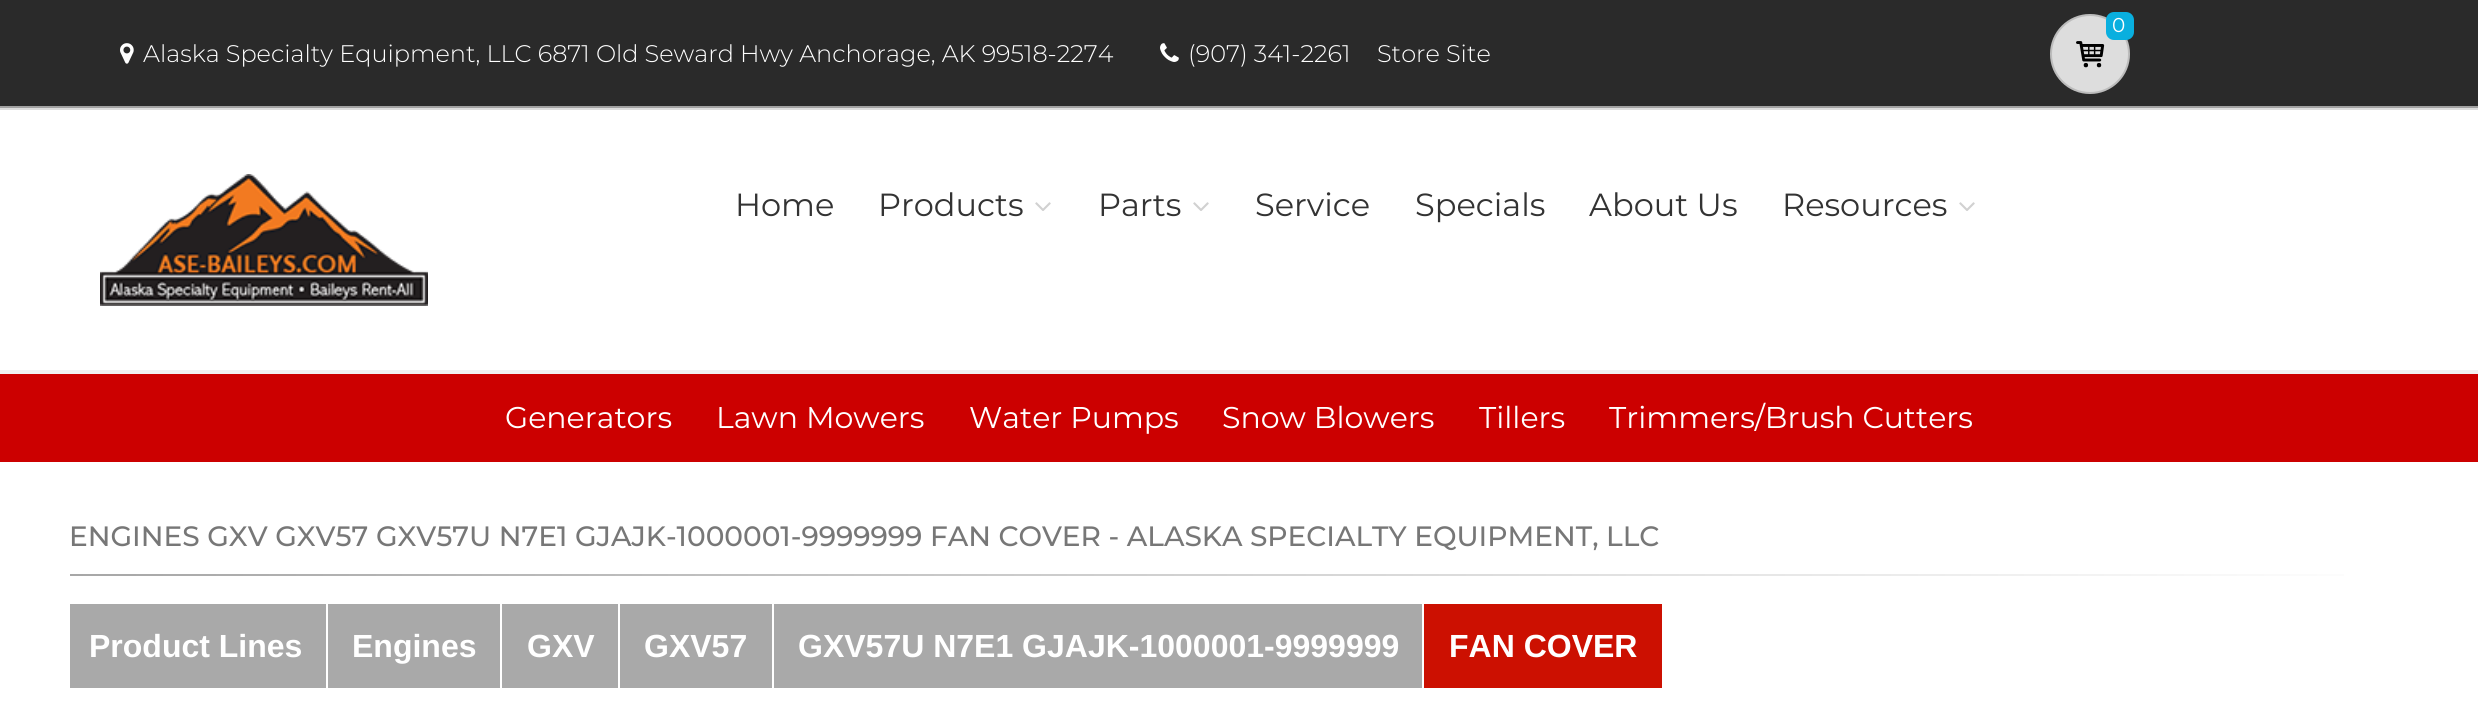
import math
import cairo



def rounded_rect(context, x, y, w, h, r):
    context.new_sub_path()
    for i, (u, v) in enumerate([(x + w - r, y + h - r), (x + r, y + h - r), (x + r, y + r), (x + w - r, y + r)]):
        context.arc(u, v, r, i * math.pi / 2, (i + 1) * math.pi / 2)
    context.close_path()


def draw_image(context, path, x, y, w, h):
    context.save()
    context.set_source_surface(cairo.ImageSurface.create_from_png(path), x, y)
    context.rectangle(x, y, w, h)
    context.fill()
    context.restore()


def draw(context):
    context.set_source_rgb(1, 1, 1)
    context.paint()
    context.set_source_rgb(42 / 255, 42 / 255, 42 / 255)
    context.rectangle(0, 0, 2478, 106)
    context.fill()
    context.set_source_rgb(161 / 255, 161 / 255, 161 / 255)
    context.rectangle(0, 106, 2478, 2)
    context.fill()
    context.set_source_rgb(221 / 255, 221 / 255, 221 / 255)
    context.arc(2090, 54, 40, 0, 2 * math.pi)
    context.fill()
    context.arc(2090, 54, 39, 0, 2 * math.pi)
    context.set_source_rgba(0, 0, 0, 0.15)
    context.stroke()
    context.set_source_rgb(9 / 255, 175 / 255, 223 / 255)
    rounded_rect(context, 2106, 12, 28, 28, 8)
    context.fill()
    draw_image(context, "images/1.png", 2076, 41, 29, 27)
    draw_image(context, "images/2.png", 120, 43, 14, 21)
    draw_image(context, "images/3.png", 1160, 43, 19, 19)
    context.set_source_rgb(221 / 255, 221 / 255, 221 / 255)
    context.rectangle(0, 108, 2478, 2)
    context.fill()
    context.set_source_rgb(241 / 255, 241 / 255, 241 / 255)
    context.rectangle(0, 370, 2478, 4)
    context.fill()
    draw_image(context, "images/4.png", 100, 174, 328, 132)
    draw_image(context, "images/5.png", 1035, 202, 16, 9)
    draw_image(context, "images/5.png", 1193, 202, 16, 9)
    draw_image(context, "images/5.png", 1959, 202, 16, 9)
    context.set_source_rgb(204 / 255, 0, 0)
    context.rectangle(0, 374, 2478, 88)
    context.fill()
    gradient = cairo.LinearGradient(70, 575, 2410, 575)
    gradient.add_color_stop_rgba(0, 167 / 255, 167 / 255, 167 / 255, 1)
    gradient.add_color_stop_rgba(1, 1, 1, 1, 1)
    context.set_source(gradient)
    context.rectangle(70, 574, 2274, 2)
    context.fill()
    context.set_source_rgb(169 / 255, 169 / 255, 169 / 255)
    context.rectangle(70, 604, 256, 84)
    context.fill()
    context.rectangle(328, 604, 172, 84)
    context.fill()
    context.rectangle(502, 604, 116, 84)
    context.fill()
    context.rectangle(620, 604, 152, 84)
    context.fill()
    context.rectangle(774, 604, 648, 84)
    context.fill()
    context.set_source_rgb(204 / 255, 16 / 255, 1 / 255)
    context.rectangle(1424, 604, 238, 84)
    context.fill()
    context.select_font_face("Montserrat")
    context.set_font_size(20)
    context.set_source_rgb(1, 1, 1)
    context.move_to(2112, 32)
    context.show_text("0")
    context.select_font_face("Montserrat Light")
    context.set_font_size(24)
    context.move_to(143, 62)
    context.show_text("Alaska Specialty Equipment, LLC 6871 Old Seward Hwy Anchorage, AK 99518-2274")
    context.move_to(1188, 62)
    context.show_text("(907) 341-2261")
    context.move_to(1377, 62)
    context.show_text("Store Site")
    context.select_font_face("Montserrat")
    context.set_font_size(32)
    context.set_source_rgb(51 / 255, 51 / 255, 51 / 255)
    context.move_to(735, 216)
    context.show_text("Home")
    context.move_to(878, 216)
    context.show_text("Products")
    context.move_to(1098, 216)
    context.show_text("Parts")
    context.move_to(1255, 216)
    context.show_text("Service")
    context.move_to(1415, 216)
    context.show_text("Specials")
    context.move_to(1589, 216)
    context.show_text("About Us")
    context.move_to(1782, 216)
    context.show_text("Resources")
    context.set_font_size(30)
    context.set_source_rgb(1, 1, 1)
    context.move_to(505, 428)
    context.show_text("Generators")
    context.move_to(716, 428)
    context.show_text("Lawn Mowers")
    context.move_to(969, 428)
    context.show_text("Water Pumps")
    context.move_to(1222, 428)
    context.show_text("Snow Blowers")
    context.move_to(1479, 428)
    context.show_text("Tillers")
    context.move_to(1609, 428)
    context.show_text("Trimmers/Brush Cutters")
    context.select_font_face("Montserrat Medium")
    context.set_font_size(28)
    context.set_source_rgb(119 / 255, 119 / 255, 119 / 255)
    context.move_to(69, 546)
    context.show_text("ENGINES GXV GXV57 GXV57U N7E1 GJAJK-1000001-9999999 FAN COVER - ALASKA SPECIALTY EQUIPMENT, LLC")
    context.select_font_face("Liberation Sans", cairo.FontSlant.NORMAL, cairo.FontWeight.BOLD)
    context.set_font_size(32)
    context.set_source_rgb(1, 1, 1)
    context.move_to(89, 657)
    context.show_text("Product Lines")
    context.move_to(352, 657)
    context.show_text("Engines")
    context.move_to(527, 657)
    context.show_text("GXV")
    context.move_to(644, 657)
    context.show_text("GXV57")
    context.move_to(798, 657)
    context.show_text("GXV57U N7E1 GJAJK-1000001-9999999")
    context.move_to(1449, 657)
    context.show_text("FAN COVER")


surface = cairo.ImageSurface(cairo.Format.RGB24, 2478, 721)
context = cairo.Context(surface)
options = cairo.FontOptions()
options.set_hint_metrics(cairo.HintMetrics.OFF)
options.set_hint_style(cairo.HintStyle.NONE)
context.set_font_options(options)
context.set_miter_limit(4)
draw(context)
surface.write_to_png("out.png")
